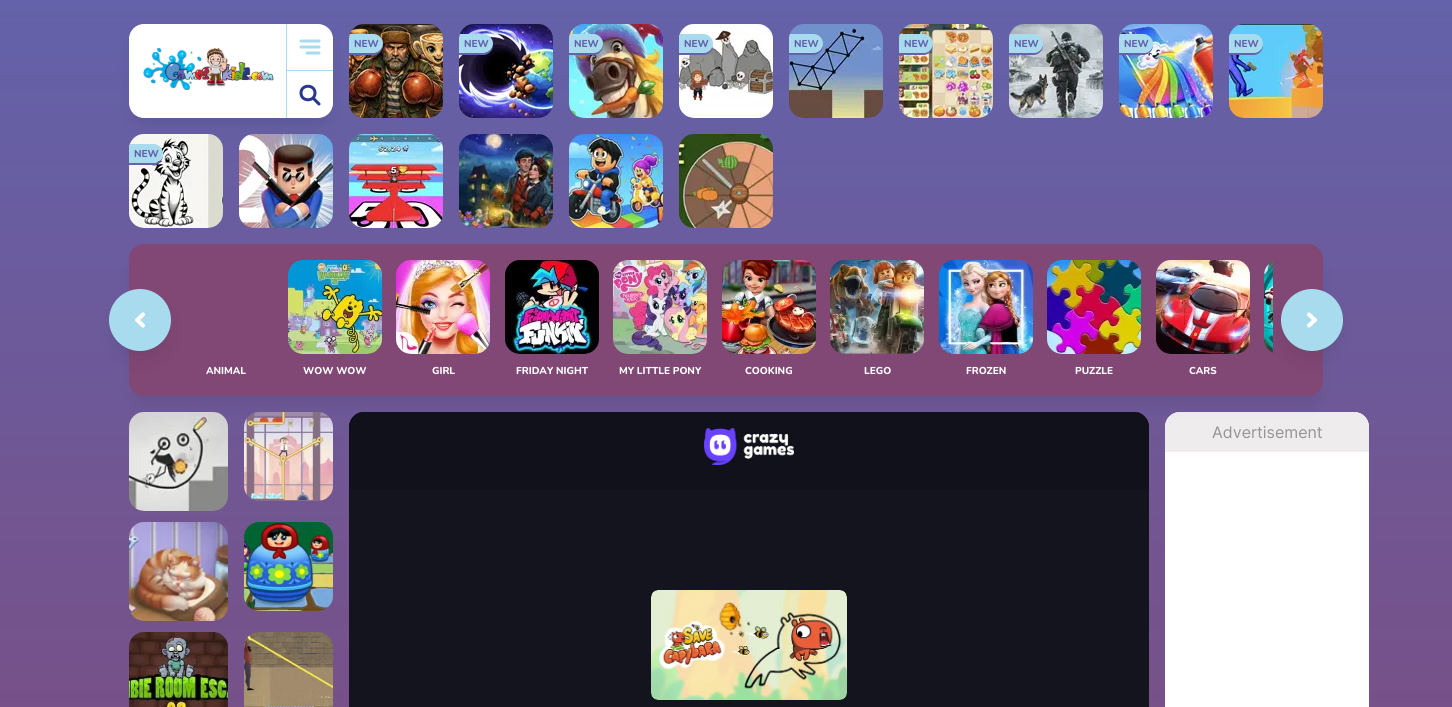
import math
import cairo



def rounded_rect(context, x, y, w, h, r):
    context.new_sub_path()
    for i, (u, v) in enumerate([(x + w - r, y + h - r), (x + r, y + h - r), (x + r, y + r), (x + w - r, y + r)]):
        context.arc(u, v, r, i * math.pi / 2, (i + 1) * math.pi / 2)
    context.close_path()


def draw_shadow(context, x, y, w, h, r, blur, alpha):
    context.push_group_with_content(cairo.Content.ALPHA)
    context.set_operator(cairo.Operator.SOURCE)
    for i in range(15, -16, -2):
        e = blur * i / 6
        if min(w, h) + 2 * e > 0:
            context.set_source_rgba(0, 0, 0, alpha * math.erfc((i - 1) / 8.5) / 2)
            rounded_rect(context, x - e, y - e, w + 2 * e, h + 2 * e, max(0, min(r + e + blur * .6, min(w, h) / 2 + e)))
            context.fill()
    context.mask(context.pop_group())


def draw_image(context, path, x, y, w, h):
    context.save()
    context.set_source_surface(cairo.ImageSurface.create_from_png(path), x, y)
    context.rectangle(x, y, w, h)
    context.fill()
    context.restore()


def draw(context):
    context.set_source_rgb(1, 1, 1)
    context.paint()
    gradient = cairo.LinearGradient(726, 0, 726, 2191)
    gradient.add_color_stop_rgba(0, 99 / 255, 98 / 255, 170 / 255, 1)
    gradient.add_color_stop_rgba(1, 160 / 255, 45 / 255, 67 / 255, 1)
    context.set_source(gradient)
    context.rectangle(0, 0, 1452, 707)
    context.fill()
    context.set_source_rgb(16 / 255, 24 / 255, 40 / 255)
    draw_shadow(context, 133, 40, 196, 86, 11, 8, 0.1)
    context.set_source_rgb(1, 1, 1)
    rounded_rect(context, 129, 24, 204, 94, 15)
    context.fill()
    draw_image(context, "images/1.png", 143, 48, 131, 42)
    context.set_source_rgb(168 / 255, 219 / 255, 238 / 255)
    context.rectangle(286, 24, 1, 94)
    context.fill()
    context.rectangle(287, 70, 46, 1)
    context.fill()
    context.new_path()
    context.move_to(301, 47)
    context.line_to(319, 47)
    context.move_to(301, 41)
    context.line_to(319, 41)
    context.move_to(307, 53)
    context.line_to(319, 53)
    context.set_line_width(3)
    context.set_line_cap(cairo.LineCap.ROUND)
    context.set_line_join(cairo.LineJoin.ROUND)
    context.stroke()
    context.new_path()
    context.move_to(319, 104)
    context.line_to(313, 98)
    context.move_to(315, 93)
    context.curve_to(315, 102, 301, 102, 301, 93)
    context.curve_to(301, 84, 315, 84, 315, 93)
    context.close_path()
    context.set_source_rgb(41 / 255, 55 / 255, 141 / 255)
    context.stroke()
    draw_image(context, "images/2.png", 349, 24, 94, 94)
    context.set_source_rgb(99 / 255, 98 / 255, 170 / 255)
    context.new_path()
    context.move_to(349, 53)
    context.line_to(349, 55)
    context.line_to(373.5, 55)
    context.curve_to(378.5, 55, 383, 50.5, 383, 45.5)
    context.line_to(383, 44.5)
    context.curve_to(382.5, 49.5, 378.5, 53, 373.5, 53)
    context.close_path()
    context.fill()
    context.save()
    rounded_rect(context, 349, 24, 94, 94, 15)
    context.clip()
    context.set_source_rgb(168 / 255, 219 / 255, 238 / 255)
    context.new_path()
    context.move_to(349, 34)
    context.line_to(373.5, 34)
    context.curve_to(378.5, 34, 383, 38.5, 383, 43.5)
    context.curve_to(383, 48.5, 378.5, 53, 373.5, 53)
    context.line_to(349, 53)
    context.close_path()
    context.fill()
    context.restore()
    draw_image(context, "images/3.png", 459, 24, 94, 94)
    context.new_path()
    context.move_to(459, 53)
    context.line_to(459, 55)
    context.line_to(483.5, 55)
    context.curve_to(488.5, 55, 493, 50.5, 493, 45.5)
    context.line_to(493, 44.5)
    context.curve_to(492.5, 49.5, 488.5, 53, 483.5, 53)
    context.close_path()
    context.fill()
    context.save()
    rounded_rect(context, 459, 24, 94, 94, 15)
    context.clip()
    context.set_source_rgb(168 / 255, 219 / 255, 238 / 255)
    context.new_path()
    context.move_to(459, 34)
    context.line_to(483.5, 34)
    context.curve_to(488.5, 34, 493, 38.5, 493, 43.5)
    context.curve_to(493, 48.5, 488.5, 53, 483.5, 53)
    context.line_to(459, 53)
    context.close_path()
    context.fill()
    context.restore()
    draw_image(context, "images/4.png", 569, 24, 94, 94)
    context.new_path()
    context.move_to(569, 53)
    context.line_to(569, 55)
    context.line_to(593.5, 55)
    context.curve_to(598.5, 55, 603, 50.5, 603, 45.5)
    context.line_to(603, 44.5)
    context.curve_to(602.5, 49.5, 598.5, 53, 593.5, 53)
    context.close_path()
    context.fill()
    context.save()
    rounded_rect(context, 569, 24, 94, 94, 15)
    context.clip()
    context.set_source_rgb(168 / 255, 219 / 255, 238 / 255)
    context.new_path()
    context.move_to(569, 34)
    context.line_to(593.5, 34)
    context.curve_to(598.5, 34, 603, 38.5, 603, 43.5)
    context.curve_to(603, 48.5, 598.5, 53, 593.5, 53)
    context.line_to(569, 53)
    context.close_path()
    context.fill()
    context.restore()
    draw_image(context, "images/5.png", 679, 24, 94, 94)
    context.new_path()
    context.move_to(679, 53)
    context.line_to(679, 55)
    context.line_to(703.5, 55)
    context.curve_to(708.5, 55, 713, 50.5, 713, 45.5)
    context.line_to(713, 44.5)
    context.curve_to(712.5, 49.5, 708.5, 53, 703.5, 53)
    context.close_path()
    context.fill()
    context.save()
    rounded_rect(context, 679, 24, 94, 94, 15)
    context.clip()
    context.set_source_rgb(168 / 255, 219 / 255, 238 / 255)
    context.new_path()
    context.move_to(679, 34)
    context.line_to(703.5, 34)
    context.curve_to(708.5, 34, 713, 38.5, 713, 43.5)
    context.curve_to(713, 48.5, 708.5, 53, 703.5, 53)
    context.line_to(679, 53)
    context.close_path()
    context.fill()
    context.restore()
    draw_image(context, "images/6.png", 789, 24, 94, 94)
    context.new_path()
    context.move_to(789, 53)
    context.line_to(789, 55)
    context.line_to(813.5, 55)
    context.curve_to(818.5, 55, 823, 50.5, 823, 45.5)
    context.line_to(823, 44.5)
    context.curve_to(822.5, 49.5, 818.5, 53, 813.5, 53)
    context.close_path()
    context.fill()
    context.save()
    rounded_rect(context, 789, 24, 94, 94, 15)
    context.clip()
    context.set_source_rgb(168 / 255, 219 / 255, 238 / 255)
    context.new_path()
    context.move_to(789, 34)
    context.line_to(813.5, 34)
    context.curve_to(818.5, 34, 823, 38.5, 823, 43.5)
    context.curve_to(823, 48.5, 818.5, 53, 813.5, 53)
    context.line_to(789, 53)
    context.close_path()
    context.fill()
    context.restore()
    draw_image(context, "images/7.png", 899, 24, 94, 94)
    context.new_path()
    context.move_to(899, 53)
    context.line_to(899, 55)
    context.line_to(923.5, 55)
    context.curve_to(928.5, 55, 933, 50.5, 933, 45.5)
    context.line_to(933, 44.5)
    context.curve_to(932.5, 49.5, 928.5, 53, 923.5, 53)
    context.close_path()
    context.fill()
    context.save()
    rounded_rect(context, 899, 24, 94, 94, 15)
    context.clip()
    context.set_source_rgb(168 / 255, 219 / 255, 238 / 255)
    context.new_path()
    context.move_to(899, 34)
    context.line_to(923.5, 34)
    context.curve_to(928.5, 34, 933, 38.5, 933, 43.5)
    context.curve_to(933, 48.5, 928.5, 53, 923.5, 53)
    context.line_to(899, 53)
    context.close_path()
    context.fill()
    context.restore()
    draw_image(context, "images/8.png", 1009, 24, 94, 94)
    context.new_path()
    context.move_to(1009, 53)
    context.line_to(1009, 55)
    context.line_to(1033.5, 55)
    context.curve_to(1038.5, 55, 1043, 50.5, 1043, 45.5)
    context.line_to(1043, 44.5)
    context.curve_to(1042.5, 49.5, 1038.5, 53, 1033.5, 53)
    context.close_path()
    context.fill()
    context.save()
    rounded_rect(context, 1009, 24, 94, 94, 15)
    context.clip()
    context.set_source_rgb(168 / 255, 219 / 255, 238 / 255)
    context.new_path()
    context.move_to(1009, 34)
    context.line_to(1033.5, 34)
    context.curve_to(1038.5, 34, 1043, 38.5, 1043, 43.5)
    context.curve_to(1043, 48.5, 1038.5, 53, 1033.5, 53)
    context.line_to(1009, 53)
    context.close_path()
    context.fill()
    context.restore()
    draw_image(context, "images/9.png", 1119, 24, 94, 94)
    context.new_path()
    context.move_to(1119, 53)
    context.line_to(1119, 55)
    context.line_to(1143.5, 55)
    context.curve_to(1148.5, 55, 1153, 50.5, 1153, 45.5)
    context.line_to(1153, 44.5)
    context.curve_to(1152.5, 49.5, 1148.5, 53, 1143.5, 53)
    context.close_path()
    context.fill()
    context.save()
    rounded_rect(context, 1119, 24, 94, 94, 15)
    context.clip()
    context.set_source_rgb(168 / 255, 219 / 255, 238 / 255)
    context.new_path()
    context.move_to(1119, 34)
    context.line_to(1143.5, 34)
    context.curve_to(1148.5, 34, 1153, 38.5, 1153, 43.5)
    context.curve_to(1153, 48.5, 1148.5, 53, 1143.5, 53)
    context.line_to(1119, 53)
    context.close_path()
    context.fill()
    context.restore()
    draw_image(context, "images/10.png", 1229, 24, 94, 94)
    context.new_path()
    context.move_to(1229, 53)
    context.line_to(1229, 55)
    context.line_to(1253.5, 55)
    context.curve_to(1258.5, 55, 1263, 50.5, 1263, 45.5)
    context.line_to(1263, 44.5)
    context.curve_to(1262.5, 49.5, 1258.5, 53, 1253.5, 53)
    context.close_path()
    context.fill()
    context.save()
    rounded_rect(context, 1229, 24, 94, 94, 15)
    context.clip()
    context.set_source_rgb(168 / 255, 219 / 255, 238 / 255)
    context.new_path()
    context.move_to(1229, 34)
    context.line_to(1253.5, 34)
    context.curve_to(1258.5, 34, 1263, 38.5, 1263, 43.5)
    context.curve_to(1263, 48.5, 1258.5, 53, 1253.5, 53)
    context.line_to(1229, 53)
    context.close_path()
    context.fill()
    context.restore()
    draw_image(context, "images/11.png", 129, 134, 94, 94)
    context.new_path()
    context.move_to(129, 163)
    context.line_to(129, 165)
    context.line_to(153.5, 165)
    context.curve_to(158.5, 165, 163, 160.5, 163, 155.5)
    context.line_to(163, 154.5)
    context.curve_to(162.5, 159.5, 158.5, 163, 153.5, 163)
    context.close_path()
    context.fill()
    context.save()
    rounded_rect(context, 129, 134, 94, 94, 15)
    context.clip()
    context.set_source_rgb(168 / 255, 219 / 255, 238 / 255)
    context.new_path()
    context.move_to(129, 144)
    context.line_to(153.5, 144)
    context.curve_to(158.5, 144, 163, 148.5, 163, 153.5)
    context.curve_to(163, 158.5, 158.5, 163, 153.5, 163)
    context.line_to(129, 163)
    context.close_path()
    context.fill()
    context.restore()
    draw_image(context, "images/12.png", 239, 134, 94, 94)
    draw_image(context, "images/13.png", 349, 134, 94, 94)
    draw_image(context, "images/14.png", 459, 134, 94, 94)
    draw_image(context, "images/15.png", 569, 134, 94, 94)
    draw_image(context, "images/16.png", 679, 134, 94, 94)
    context.set_source_rgb(1, 1, 1)
    rounded_rect(context, 1165, 412, 204, 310, 15)
    context.fill()
    context.set_source_rgb(238 / 255, 236 / 255, 236 / 255)
    context.new_path()
    context.move_to(1180, 412)
    context.line_to(1354, 412)
    context.curve_to(1362.5, 412, 1369, 418.5, 1369, 427)
    context.line_to(1369, 452)
    context.line_to(1165, 452)
    context.line_to(1165, 427)
    context.curve_to(1165, 418.5, 1171.5, 412, 1180, 412)
    context.close_path()
    context.fill()
    context.set_source_rgb(16 / 255, 24 / 255, 40 / 255)
    draw_shadow(context, 133, 260, 1186, 144, 11, 8, 0.1)
    context.set_source_rgb(129 / 255, 71 / 255, 117 / 255)
    rounded_rect(context, 129, 244, 1194, 152, 15)
    context.fill()
    context.set_source_rgb(16 / 255, 24 / 255, 40 / 255)
    draw_shadow(context, 113, 306, 54, 53, 26.5, 8.5, 0.1)
    context.set_source_rgb(168 / 255, 219 / 255, 238 / 255)
    context.arc(140, 320, 31, 0, 2 * math.pi)
    context.fill()
    context.new_path()
    context.move_to(143, 314.5)
    context.line_to(137, 320)
    context.line_to(143, 325.5)
    context.set_source_rgb(1, 1, 1)
    context.set_line_width(4.1)
    context.stroke()
    draw_image(context, "images/17.png", 1264, 261, 9, 92)
    draw_image(context, "images/18.png", 288, 260, 94, 94)
    draw_image(context, "images/19.png", 396, 260, 94, 94)
    draw_image(context, "images/20.png", 505, 260, 94, 94)
    draw_image(context, "images/21.png", 613, 260, 94, 94)
    draw_image(context, "images/22.png", 722, 260, 94, 94)
    draw_image(context, "images/23.png", 830, 260, 94, 94)
    draw_image(context, "images/24.png", 939, 260, 94, 94)
    draw_image(context, "images/25.png", 1047, 260, 94, 94)
    draw_image(context, "images/26.png", 1156, 260, 94, 94)
    context.set_source_rgb(16 / 255, 24 / 255, 40 / 255)
    draw_shadow(context, 1285, 306, 54, 53, 26.5, 8.5, 0.1)
    context.set_source_rgb(168 / 255, 219 / 255, 238 / 255)
    context.arc(1312, 320, 31, 0, 2 * math.pi)
    context.fill()
    context.new_path()
    context.move_to(1309, 325.5)
    context.line_to(1315, 320)
    context.line_to(1309, 314.5)
    context.set_source_rgb(1, 1, 1)
    context.stroke()
    draw_image(context, "images/27.png", 129, 412, 99, 99)
    draw_image(context, "images/28.png", 244, 412, 89, 89)
    draw_image(context, "images/29.png", 129, 522, 99, 99)
    draw_image(context, "images/30.png", 244, 522, 89, 89)
    draw_image(context, "images/31.png", 129, 632, 99, 75)
    draw_image(context, "images/32.png", 244, 632, 89, 75)
    draw_image(context, "images/33.png", 349, 412, 800, 295)
    context.select_font_face("Nunito ExtraBold")
    context.set_font_size(10)
    context.set_source_rgb(99 / 255, 98 / 255, 170 / 255)
    context.move_to(354, 47)
    context.show_text("NEW")
    context.move_to(464, 47)
    context.show_text("NEW")
    context.move_to(574, 47)
    context.show_text("NEW")
    context.move_to(684, 47)
    context.show_text("NEW")
    context.move_to(794, 47)
    context.show_text("NEW")
    context.move_to(904, 47)
    context.show_text("NEW")
    context.move_to(1014, 47)
    context.show_text("NEW")
    context.move_to(1124, 47)
    context.show_text("NEW")
    context.move_to(1234, 47)
    context.show_text("NEW")
    context.move_to(134, 157)
    context.show_text("NEW")
    context.set_source_rgb(1, 1, 1)
    context.move_to(206, 374)
    context.show_text("ANIMAL")
    context.move_to(303, 374)
    context.show_text("WOW WOW")
    context.move_to(432, 374)
    context.show_text("GIRL")
    context.move_to(516, 374)
    context.show_text("FRIDAY NIGHT")
    context.move_to(619, 374)
    context.show_text("MY LITTLE PONY")
    context.move_to(745, 374)
    context.show_text("COOKING")
    context.move_to(864, 374)
    context.show_text("LEGO")
    context.move_to(966, 374)
    context.show_text("FROZEN")
    context.move_to(1075, 374)
    context.show_text("PUZZLE")
    context.move_to(1189, 374)
    context.show_text("CARS")
    context.select_font_face("Inter")
    context.set_font_size(16)
    context.set_source_rgb(150 / 255, 148 / 255, 148 / 255)
    context.move_to(1212, 438)
    context.show_text("Advertisement")


surface = cairo.ImageSurface(cairo.Format.RGB24, 1452, 707)
context = cairo.Context(surface)
options = cairo.FontOptions()
options.set_hint_metrics(cairo.HintMetrics.OFF)
options.set_hint_style(cairo.HintStyle.NONE)
context.set_font_options(options)
context.set_miter_limit(4)
draw(context)
surface.write_to_png("out.png")
